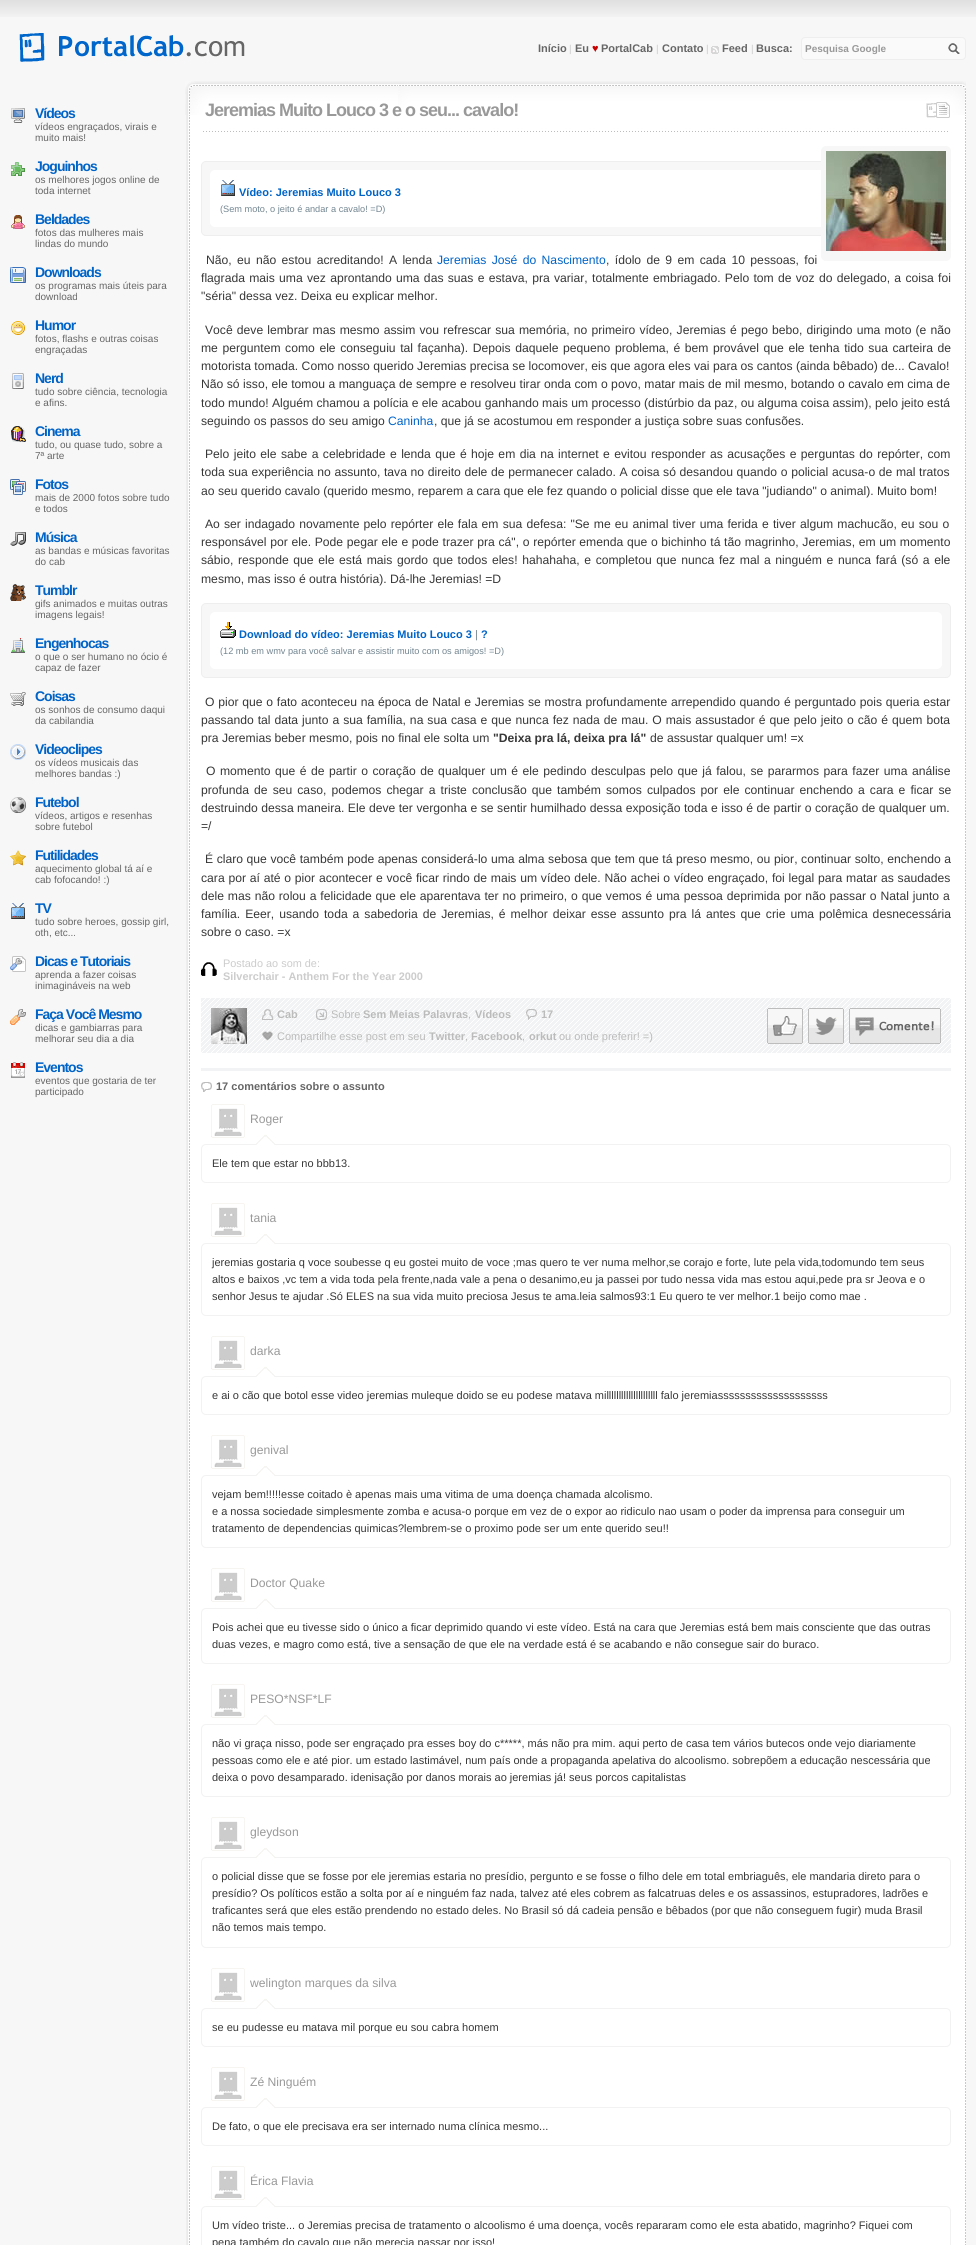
import math
import cairo



def draw_spaced(context, x, y, s, letter, word):
    context.move_to(x, y)
    for ch in s:
        context.show_text(ch)
        context.rel_move_to(letter + word * (ch == ' '), 0)


def rounded_rect(context, x, y, w, h, r):
    context.new_sub_path()
    for i, (u, v) in enumerate([(x + w - r, y + h - r), (x + r, y + h - r), (x + r, y + r), (x + w - r, y + r)]):
        context.arc(u, v, r, i * math.pi / 2, (i + 1) * math.pi / 2)
    context.close_path()


def draw_image(context, path, x, y, w, h):
    context.save()
    context.set_source_surface(cairo.ImageSurface.create_from_png(path), x, y)
    context.rectangle(x, y, w, h)
    context.fill()
    context.restore()


def draw(context):
    context.set_source_rgb(247 / 255, 247 / 255, 247 / 255)
    context.paint()
    draw_image(context, "images/1.png", 0, 0, 976, 17)
    draw_image(context, "images/2.png", 186, 115, 780, 2130)
    draw_image(context, "images/3.png", 185, 81, 781, 34)
    draw_image(context, "images/4.png", 19, 33, 226, 29)
    draw_image(context, "images/5.png", 711, 46, 8, 8)
    context.set_source_rgb(250 / 255, 250 / 255, 250 / 255)
    rounded_rect(context, 801.5, 37.5, 164, 22, 3.5)
    context.fill_preserve()
    context.set_source_rgb(238 / 255, 238 / 255, 238 / 255)
    context.set_line_width(1)
    context.stroke()
    draw_image(context, "images/6.png", 948, 43, 12, 11)
    draw_image(context, "images/7.png", 11, 108, 14, 15)
    draw_image(context, "images/8.png", 11, 162, 14, 14)
    draw_image(context, "images/9.png", 11, 215, 14, 14)
    draw_image(context, "images/10.png", 10, 267, 16, 16)
    draw_image(context, "images/11.png", 11, 321, 14, 14)
    draw_image(context, "images/12.png", 12, 373, 12, 16)
    draw_image(context, "images/13.png", 11, 426, 15, 16)
    draw_image(context, "images/14.png", 10, 479, 16, 16)
    draw_image(context, "images/15.png", 10, 532, 16, 14)
    draw_image(context, "images/16.png", 10, 584, 16, 17)
    draw_image(context, "images/17.png", 11, 638, 14, 15)
    draw_image(context, "images/18.png", 10, 692, 16, 14)
    draw_image(context, "images/19.png", 10, 744, 16, 16)
    draw_image(context, "images/20.png", 10, 797, 16, 16)
    draw_image(context, "images/21.png", 10, 850, 16, 16)
    draw_image(context, "images/22.png", 11, 903, 14, 16)
    draw_image(context, "images/23.png", 10, 956, 16, 16)
    draw_image(context, "images/24.png", 10, 1009, 16, 16)
    draw_image(context, "images/25.png", 11, 1062, 14, 16)
    draw_image(context, "images/26.png", 926, 102, 24, 16)
    draw_image(context, "images/27.png", 203, 131, 745, 1)
    context.set_source_rgb(247 / 255, 247 / 255, 247 / 255)
    rounded_rect(context, 201.5, 161.5, 749, 74, 4.5)
    context.fill_preserve()
    context.set_source_rgb(238 / 255, 238 / 255, 238 / 255)
    context.stroke()
    context.set_source_rgb(1, 1, 1)
    rounded_rect(context, 210, 170, 732, 57, 5)
    context.fill()
    draw_image(context, "images/28.png", 221, 180, 14, 16)
    context.set_source_rgb(247 / 255, 247 / 255, 247 / 255)
    rounded_rect(context, 821, 146, 130, 115, 5)
    context.fill()
    draw_image(context, "images/29.png", 826, 151, 120, 100)
    rounded_rect(context, 201.5, 603.5, 749, 74, 4.5)
    context.fill_preserve()
    context.set_source_rgb(238 / 255, 238 / 255, 238 / 255)
    context.stroke()
    context.set_source_rgb(1, 1, 1)
    rounded_rect(context, 210, 612, 732, 57, 5)
    context.fill()
    draw_image(context, "images/30.png", 220, 622, 16, 16)
    draw_image(context, "images/31.png", 201, 962, 16, 14)
    draw_image(context, "images/32.png", 201, 998, 750, 55)
    draw_image(context, "images/33.png", 211, 1008, 36, 36)
    draw_image(context, "images/34.png", 262, 1009, 12, 11)
    draw_image(context, "images/35.png", 316, 1009, 11, 11)
    draw_image(context, "images/36.png", 526, 1009, 11, 11)
    draw_image(context, "images/37.png", 767, 1008, 36, 36)
    draw_image(context, "images/38.png", 808, 1008, 36, 36)
    draw_image(context, "images/39.png", 849, 1008, 92, 36)
    draw_image(context, "images/40.png", 262, 1031, 11, 10)
    draw_image(context, "images/41.png", 201, 1082, 11, 10)
    context.set_source_rgb(242 / 255, 243 / 255, 244 / 255)
    context.rectangle(201, 1068, 750, 3)
    context.fill()
    draw_image(context, "images/42.png", 211, 1104, 34, 34)
    rounded_rect(context, 201.5, 1144.5, 749, 38, 4.5)
    context.set_source_rgb(242 / 255, 242 / 255, 242 / 255)
    context.stroke()
    draw_image(context, "images/43.png", 256, 1135, 19, 10)
    draw_image(context, "images/42.png", 211, 1203, 34, 34)
    rounded_rect(context, 201.5, 1243.5, 749, 72, 4.5)
    context.stroke()
    draw_image(context, "images/43.png", 256, 1234, 19, 10)
    draw_image(context, "images/42.png", 211, 1336, 34, 34)
    rounded_rect(context, 201.5, 1376.5, 749, 38, 4.5)
    context.stroke()
    draw_image(context, "images/43.png", 256, 1367, 19, 10)
    draw_image(context, "images/42.png", 211, 1435, 34, 34)
    rounded_rect(context, 201.5, 1475.5, 749, 72, 4.5)
    context.stroke()
    draw_image(context, "images/43.png", 256, 1466, 19, 10)
    draw_image(context, "images/42.png", 211, 1568, 34, 34)
    rounded_rect(context, 201.5, 1608.5, 749, 55, 4.5)
    context.stroke()
    draw_image(context, "images/43.png", 256, 1599, 19, 10)
    draw_image(context, "images/42.png", 211, 1684, 34, 34)
    rounded_rect(context, 201.5, 1724.5, 749, 72, 4.5)
    context.stroke()
    draw_image(context, "images/43.png", 256, 1715, 19, 10)
    draw_image(context, "images/42.png", 211, 1817, 34, 34)
    rounded_rect(context, 201.5, 1857.5, 749, 90, 4.5)
    context.stroke()
    draw_image(context, "images/43.png", 256, 1848, 19, 10)
    draw_image(context, "images/42.png", 211, 1968, 34, 34)
    rounded_rect(context, 201.5, 2008.5, 749, 38, 4.5)
    context.stroke()
    draw_image(context, "images/43.png", 256, 1999, 19, 10)
    draw_image(context, "images/42.png", 211, 2067, 34, 34)
    rounded_rect(context, 201.5, 2107.5, 749, 38, 4.5)
    context.stroke()
    draw_image(context, "images/43.png", 256, 2098, 19, 10)
    draw_image(context, "images/42.png", 211, 2166, 34, 34)
    rounded_rect(context, 201.5, 2206.5, 749, 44, 4.5)
    context.stroke()
    draw_image(context, "images/43.png", 256, 2197, 19, 10)
    context.select_font_face("Liberation Sans", cairo.FontSlant.NORMAL, cairo.FontWeight.BOLD)
    context.set_font_size(11)
    context.set_source_rgb(102 / 255, 102 / 255, 102 / 255)
    context.move_to(538, 52)
    context.show_text("Início")
    context.select_font_face("Liberation Sans")
    context.set_font_size(10)
    context.set_source_rgb(204 / 255, 204 / 255, 204 / 255)
    context.move_to(569, 52)
    context.show_text("|")
    context.select_font_face("Liberation Sans", cairo.FontSlant.NORMAL, cairo.FontWeight.BOLD)
    context.set_font_size(11)
    context.set_source_rgb(102 / 255, 102 / 255, 102 / 255)
    context.move_to(575, 52)
    context.show_text("Eu")
    context.set_source_rgb(199 / 255, 0, 0)
    context.move_to(592, 52)
    context.show_text("♥")
    context.set_source_rgb(102 / 255, 102 / 255, 102 / 255)
    context.move_to(601, 52)
    context.show_text("PortalCab")
    context.select_font_face("Liberation Sans")
    context.set_font_size(10)
    context.set_source_rgb(204 / 255, 204 / 255, 204 / 255)
    context.move_to(656, 52)
    context.show_text("|")
    context.select_font_face("Liberation Sans", cairo.FontSlant.NORMAL, cairo.FontWeight.BOLD)
    context.set_font_size(11)
    context.set_source_rgb(102 / 255, 102 / 255, 102 / 255)
    context.move_to(662, 52)
    context.show_text("Contato")
    context.select_font_face("Liberation Sans")
    context.set_font_size(10)
    context.set_source_rgb(204 / 255, 204 / 255, 204 / 255)
    context.move_to(706, 52)
    context.show_text("|")
    context.select_font_face("Liberation Sans", cairo.FontSlant.NORMAL, cairo.FontWeight.BOLD)
    context.set_font_size(11)
    context.set_source_rgb(102 / 255, 102 / 255, 102 / 255)
    context.move_to(722, 52)
    context.show_text("Feed")
    context.select_font_face("Liberation Sans")
    context.set_font_size(10)
    context.set_source_rgb(204 / 255, 204 / 255, 204 / 255)
    context.move_to(751, 52)
    context.show_text("|")
    context.select_font_face("Liberation Sans", cairo.FontSlant.NORMAL, cairo.FontWeight.BOLD)
    context.set_font_size(11)
    context.set_source_rgb(102 / 255, 102 / 255, 102 / 255)
    context.move_to(756, 52)
    context.show_text("Busca:")
    context.set_font_size(10)
    context.set_source_rgb(153 / 255, 153 / 255, 153 / 255)
    context.move_to(805, 52)
    context.show_text("Pesquisa Google")
    context.set_font_size(14)
    context.set_source_rgb(0, 99 / 255, 199 / 255)
    draw_spaced(context, 35, 118, "Vídeos", -1, 0)
    context.select_font_face("Liberation Sans")
    context.set_font_size(10)
    context.set_source_rgb(102 / 255, 102 / 255, 102 / 255)
    context.move_to(35, 130)
    context.show_text("vídeos engraçados, virais e")
    context.move_to(35, 141)
    context.show_text("muito mais!")
    context.select_font_face("Liberation Sans", cairo.FontSlant.NORMAL, cairo.FontWeight.BOLD)
    context.set_font_size(14)
    context.set_source_rgb(0, 99 / 255, 199 / 255)
    draw_spaced(context, 35, 171, "Joguinhos", -1, 0)
    context.select_font_face("Liberation Sans")
    context.set_font_size(10)
    context.set_source_rgb(102 / 255, 102 / 255, 102 / 255)
    context.move_to(35, 183)
    context.show_text("os melhores jogos online de")
    context.move_to(35, 194)
    context.show_text("toda internet")
    context.select_font_face("Liberation Sans", cairo.FontSlant.NORMAL, cairo.FontWeight.BOLD)
    context.set_font_size(14)
    context.set_source_rgb(0, 99 / 255, 199 / 255)
    draw_spaced(context, 35, 224, "Beldades", -1, 0)
    context.select_font_face("Liberation Sans")
    context.set_font_size(10)
    context.set_source_rgb(102 / 255, 102 / 255, 102 / 255)
    context.move_to(35, 236)
    context.show_text("fotos das mulheres mais")
    context.move_to(35, 247)
    context.show_text("lindas do mundo")
    context.select_font_face("Liberation Sans", cairo.FontSlant.NORMAL, cairo.FontWeight.BOLD)
    context.set_font_size(14)
    context.set_source_rgb(0, 99 / 255, 199 / 255)
    draw_spaced(context, 35, 277, "Downloads", -1, 0)
    context.select_font_face("Liberation Sans")
    context.set_font_size(10)
    context.set_source_rgb(102 / 255, 102 / 255, 102 / 255)
    context.move_to(35, 289)
    context.show_text("os programas mais úteis para")
    context.move_to(35, 300)
    context.show_text("download")
    context.select_font_face("Liberation Sans", cairo.FontSlant.NORMAL, cairo.FontWeight.BOLD)
    context.set_font_size(14)
    context.set_source_rgb(0, 99 / 255, 199 / 255)
    draw_spaced(context, 35, 330, "Humor", -1, 0)
    context.select_font_face("Liberation Sans")
    context.set_font_size(10)
    context.set_source_rgb(102 / 255, 102 / 255, 102 / 255)
    context.move_to(35, 342)
    context.show_text("fotos, flashs e outras coisas")
    context.move_to(35, 353)
    context.show_text("engraçadas")
    context.select_font_face("Liberation Sans", cairo.FontSlant.NORMAL, cairo.FontWeight.BOLD)
    context.set_font_size(14)
    context.set_source_rgb(0, 99 / 255, 199 / 255)
    draw_spaced(context, 35, 383, "Nerd", -1, 0)
    context.select_font_face("Liberation Sans")
    context.set_font_size(10)
    context.set_source_rgb(102 / 255, 102 / 255, 102 / 255)
    context.move_to(35, 395)
    context.show_text("tudo sobre ciência, tecnologia")
    context.move_to(35, 406)
    context.show_text("e afins.")
    context.select_font_face("Liberation Sans", cairo.FontSlant.NORMAL, cairo.FontWeight.BOLD)
    context.set_font_size(14)
    context.set_source_rgb(0, 99 / 255, 199 / 255)
    draw_spaced(context, 35, 436, "Cinema", -1, 0)
    context.select_font_face("Liberation Sans")
    context.set_font_size(10)
    context.set_source_rgb(102 / 255, 102 / 255, 102 / 255)
    context.move_to(35, 448)
    context.show_text("tudo, ou quase tudo, sobre a")
    context.move_to(35, 459)
    context.show_text("7ª arte")
    context.select_font_face("Liberation Sans", cairo.FontSlant.NORMAL, cairo.FontWeight.BOLD)
    context.set_font_size(14)
    context.set_source_rgb(0, 99 / 255, 199 / 255)
    draw_spaced(context, 35, 489, "Fotos", -1, 0)
    context.select_font_face("Liberation Sans")
    context.set_font_size(10)
    context.set_source_rgb(102 / 255, 102 / 255, 102 / 255)
    context.move_to(35, 501)
    context.show_text("mais de 2000 fotos sobre tudo")
    context.move_to(35, 512)
    context.show_text("e todos")
    context.select_font_face("Liberation Sans", cairo.FontSlant.NORMAL, cairo.FontWeight.BOLD)
    context.set_font_size(14)
    context.set_source_rgb(0, 99 / 255, 199 / 255)
    draw_spaced(context, 35, 542, "Música", -1, 0)
    context.select_font_face("Liberation Sans")
    context.set_font_size(10)
    context.set_source_rgb(102 / 255, 102 / 255, 102 / 255)
    context.move_to(35, 554)
    context.show_text("as bandas e músicas favoritas")
    context.move_to(35, 565)
    context.show_text("do cab")
    context.select_font_face("Liberation Sans", cairo.FontSlant.NORMAL, cairo.FontWeight.BOLD)
    context.set_font_size(14)
    context.set_source_rgb(0, 99 / 255, 199 / 255)
    draw_spaced(context, 35, 595, "Tumblr", -1, 0)
    context.select_font_face("Liberation Sans")
    context.set_font_size(10)
    context.set_source_rgb(102 / 255, 102 / 255, 102 / 255)
    context.move_to(35, 607)
    context.show_text("gifs animados e muitas outras")
    context.move_to(35, 618)
    context.show_text("imagens legais!")
    context.select_font_face("Liberation Sans", cairo.FontSlant.NORMAL, cairo.FontWeight.BOLD)
    context.set_font_size(14)
    context.set_source_rgb(0, 99 / 255, 199 / 255)
    draw_spaced(context, 35, 648, "Engenhocas", -1, 0)
    context.select_font_face("Liberation Sans")
    context.set_font_size(10)
    context.set_source_rgb(102 / 255, 102 / 255, 102 / 255)
    context.move_to(35, 660)
    context.show_text("o que o ser humano no ócio é")
    context.move_to(35, 671)
    context.show_text("capaz de fazer")
    context.select_font_face("Liberation Sans", cairo.FontSlant.NORMAL, cairo.FontWeight.BOLD)
    context.set_font_size(14)
    context.set_source_rgb(0, 99 / 255, 199 / 255)
    draw_spaced(context, 35, 701, "Coisas", -1, 0)
    context.select_font_face("Liberation Sans")
    context.set_font_size(10)
    context.set_source_rgb(102 / 255, 102 / 255, 102 / 255)
    context.move_to(35, 713)
    context.show_text("os sonhos de consumo daqui")
    context.move_to(35, 724)
    context.show_text("da cabilandia")
    context.select_font_face("Liberation Sans", cairo.FontSlant.NORMAL, cairo.FontWeight.BOLD)
    context.set_font_size(14)
    context.set_source_rgb(0, 99 / 255, 199 / 255)
    draw_spaced(context, 35, 754, "Videoclipes", -1, 0)
    context.select_font_face("Liberation Sans")
    context.set_font_size(10)
    context.set_source_rgb(102 / 255, 102 / 255, 102 / 255)
    context.move_to(35, 766)
    context.show_text("os vídeos musicais das")
    context.move_to(35, 777)
    context.show_text("melhores bandas :)")
    context.select_font_face("Liberation Sans", cairo.FontSlant.NORMAL, cairo.FontWeight.BOLD)
    context.set_font_size(14)
    context.set_source_rgb(0, 99 / 255, 199 / 255)
    draw_spaced(context, 35, 807, "Futebol", -1, 0)
    context.select_font_face("Liberation Sans")
    context.set_font_size(10)
    context.set_source_rgb(102 / 255, 102 / 255, 102 / 255)
    context.move_to(35, 819)
    context.show_text("vídeos, artigos e resenhas")
    context.move_to(35, 830)
    context.show_text("sobre futebol")
    context.select_font_face("Liberation Sans", cairo.FontSlant.NORMAL, cairo.FontWeight.BOLD)
    context.set_font_size(14)
    context.set_source_rgb(0, 99 / 255, 199 / 255)
    draw_spaced(context, 35, 860, "Futilidades", -1, 0)
    context.select_font_face("Liberation Sans")
    context.set_font_size(10)
    context.set_source_rgb(102 / 255, 102 / 255, 102 / 255)
    context.move_to(35, 872)
    context.show_text("aquecimento global tá aí e")
    context.move_to(35, 883)
    context.show_text("cab fofocando! :)")
    context.select_font_face("Liberation Sans", cairo.FontSlant.NORMAL, cairo.FontWeight.BOLD)
    context.set_font_size(14)
    context.set_source_rgb(0, 99 / 255, 199 / 255)
    draw_spaced(context, 35, 913, "TV", -1, 0)
    context.select_font_face("Liberation Sans")
    context.set_font_size(10)
    context.set_source_rgb(102 / 255, 102 / 255, 102 / 255)
    context.move_to(35, 925)
    context.show_text("tudo sobre heroes, gossip girl,")
    context.move_to(35, 936)
    context.show_text("oth, etc...")
    context.select_font_face("Liberation Sans", cairo.FontSlant.NORMAL, cairo.FontWeight.BOLD)
    context.set_font_size(14)
    context.set_source_rgb(0, 99 / 255, 199 / 255)
    draw_spaced(context, 35, 966, "Dicas e Tutoriais", -1, 0)
    context.select_font_face("Liberation Sans")
    context.set_font_size(10)
    context.set_source_rgb(102 / 255, 102 / 255, 102 / 255)
    context.move_to(35, 978)
    context.show_text("aprenda a fazer coisas")
    context.move_to(35, 989)
    context.show_text("inimagináveis na web")
    context.select_font_face("Liberation Sans", cairo.FontSlant.NORMAL, cairo.FontWeight.BOLD)
    context.set_font_size(14)
    context.set_source_rgb(0, 99 / 255, 199 / 255)
    draw_spaced(context, 35, 1019, "Faça Você Mesmo", -1, 0)
    context.select_font_face("Liberation Sans")
    context.set_font_size(10)
    context.set_source_rgb(102 / 255, 102 / 255, 102 / 255)
    context.move_to(35, 1031)
    context.show_text("dicas e gambiarras para")
    context.move_to(35, 1042)
    context.show_text("melhorar seu dia a dia")
    context.select_font_face("Liberation Sans", cairo.FontSlant.NORMAL, cairo.FontWeight.BOLD)
    context.set_font_size(14)
    context.set_source_rgb(0, 99 / 255, 199 / 255)
    draw_spaced(context, 35, 1072, "Eventos", -1, 0)
    context.select_font_face("Liberation Sans")
    context.set_font_size(10)
    context.set_source_rgb(102 / 255, 102 / 255, 102 / 255)
    context.move_to(35, 1084)
    context.show_text("eventos que gostaria de ter")
    context.move_to(35, 1095)
    context.show_text("participado")
    context.select_font_face("Liberation Sans", cairo.FontSlant.NORMAL, cairo.FontWeight.BOLD)
    context.set_font_size(18)
    context.set_source_rgb(153 / 255, 153 / 255, 153 / 255)
    draw_spaced(context, 205, 116, "Jeremias Muito Louco 3 e o seu... cavalo!", -1, 0)
    context.set_font_size(11)
    context.set_source_rgb(0, 99 / 255, 199 / 255)
    context.move_to(239, 196)
    context.show_text("Vídeo: Jeremias Muito Louco 3")
    context.select_font_face("Liberation Sans")
    context.set_font_size(9.2)
    context.set_source_rgb(115 / 255, 134 / 255, 145 / 255)
    context.move_to(220, 212)
    context.show_text("(Sem moto, o jeito é andar a cavalo! =D)")
    context.set_font_size(12.15)
    context.set_source_rgb(55 / 255, 55 / 255, 55 / 255)
    draw_spaced(context, 206, 264, "Não, eu não estou acreditando! A lenda", 0, 2)
    context.set_source_rgb(0, 99 / 255, 199 / 255)
    draw_spaced(context, 437, 264, "Jeremias José do Nascimento", 0, 2)
    context.set_source_rgb(55 / 255, 55 / 255, 55 / 255)
    draw_spaced(context, 606, 264, ", ídolo de 9 em cada 10 pessoas, foi", 0, 2)
    draw_spaced(context, 201, 282, "flagrada mais uma vez aprontando uma das suas e estava, pra variar, totalmente embriagado. Pelo tom de voz do delegado, a coisa foi", 0, 0.9)
    context.move_to(201, 300)
    context.show_text("\"séria\" dessa vez. Deixa eu explicar melhor.")
    draw_spaced(context, 205, 334, "Você deve lembrar mas mesmo assim vou refrescar sua memória, no primeiro vídeo, Jeremias é pego bebo, dirigindo uma moto (e não", 0, 0.75)
    draw_spaced(context, 201, 352, "me perguntem como ele conseguiu tal façanha). Depois daquele pequeno problema, é bem provável que ele tenha tido sua carteira de", 0, 1.2)
    context.move_to(201, 370)
    context.show_text("motorista tomada. Como nosso querido Jeremias precisa se locomover, eis que agora eles vai para os cantos (ainda bêbado) de... Cavalo!")
    draw_spaced(context, 201, 388, "Não só isso, ele tomou a manguaça de sempre e resolveu tirar onda com o povo, matar mais de mil mesmo, botando o cavalo em cima de", 0, 0.1)
    context.move_to(201, 407)
    context.show_text("todo mundo! Alguém chamou a polícia e ele acabou ganhando mais um processo (distúrbio da paz, ou alguma coisa assim), pelo jeito está")
    context.move_to(201, 425)
    context.show_text("seguindo os passos do seu amigo")
    context.set_source_rgb(0, 99 / 255, 199 / 255)
    context.move_to(388, 425)
    context.show_text("Caninha")
    context.set_source_rgb(55 / 255, 55 / 255, 55 / 255)
    context.move_to(434, 425)
    context.show_text(", que já se acostumou em responder a justiça sobre suas confusões.")
    draw_spaced(context, 205, 458, "Pelo jeito ele sabe a celebridade e lenda que é hoje em dia na internet e evitou responder as acusações e perguntas do repórter, com", 0, 1)
    draw_spaced(context, 201, 476, "toda sua experiência no assunto, tava no direito dele de permanecer calado. A coisa só desandou quando o policial acusa-o de mal tratos", 0, 0.25)
    context.move_to(201, 495)
    context.show_text("ao seu querido cavalo (querido mesmo, reparem a cara que ele fez quando o policial disse que ele tava \"judiando\" o animal). Muito bom!")
    draw_spaced(context, 205, 528, "Ao ser indagado novamente pelo repórter ele fala em sua defesa: \"Se me eu animal tiver uma ferida e tiver algum machucão, eu sou o", 0, 0.8)
    draw_spaced(context, 201, 546, "responsável por ele. Pode pegar ele e pode trazer pra cá\", o repórter emenda que o bichinho tá tão magrinho, Jeremias, em um momento", 0, 0.3)
    draw_spaced(context, 201, 564, "sábio, responde que ele está mais gordo que todos eles! hahahaha, e completou que nunca fez mal a ninguém e nunca fará (só a ele", 0, 1.25)
    context.move_to(201, 583)
    context.show_text("mesmo, mas isso é outra história). Dá-lhe Jeremias! =D")
    context.select_font_face("Liberation Sans", cairo.FontSlant.NORMAL, cairo.FontWeight.BOLD)
    context.set_font_size(11)
    context.set_source_rgb(0, 99 / 255, 199 / 255)
    context.move_to(239, 638)
    context.show_text("Download do vídeo: Jeremias Muito Louco 3")
    context.select_font_face("Liberation Sans")
    context.set_source_rgb(115 / 255, 134 / 255, 145 / 255)
    context.move_to(475, 638)
    context.show_text("|")
    context.select_font_face("Liberation Sans", cairo.FontSlant.NORMAL, cairo.FontWeight.BOLD)
    context.set_source_rgb(0, 99 / 255, 199 / 255)
    context.move_to(481, 638)
    context.show_text("?")
    context.select_font_face("Liberation Sans")
    context.set_font_size(9.2)
    context.set_source_rgb(115 / 255, 134 / 255, 145 / 255)
    context.move_to(220, 654)
    context.show_text("(12 mb em wmv para você salvar e assistir muito com os amigos! =D)")
    context.set_font_size(12.15)
    context.set_source_rgb(55 / 255, 55 / 255, 55 / 255)
    draw_spaced(context, 205, 706, "O pior que o fato aconteceu na época de Natal e Jeremias se mostra profundamente arrependido quando é perguntado pois queria estar", 0, 0.4)
    draw_spaced(context, 201, 724, "passando tal data junto a sua família, na sua casa e que nunca fez nada de mau. O mais assustador é que pelo jeito o cão é quem bota", 0, 0.6)
    context.move_to(201, 742)
    context.show_text("pra Jeremias beber mesmo, pois no final ele solta um")
    context.select_font_face("Liberation Sans", cairo.FontSlant.NORMAL, cairo.FontWeight.BOLD)
    context.move_to(493, 742)
    context.show_text("\"Deixa pra lá, deixa pra lá\"")
    context.select_font_face("Liberation Sans")
    context.move_to(650, 742)
    context.show_text("de assustar qualquer um! =x")
    draw_spaced(context, 206, 775, "O momento que é de partir o coração de qualquer um é ele pedindo desculpas pelo que já falou, se pararmos para fazer uma análise", 0, 1.1)
    draw_spaced(context, 201, 794, "profunda de seu caso, podemos chegar a triste conclusão que também somos culpados por ele continuar enchendo a cara e ficar se", 0, 1.7)
    draw_spaced(context, 201, 812, "destruindo dessa maneira. Ele deve ter vergonha e se sentir humilhado dessa exposição toda e isso é de partir o coração de qualquer um.", 0, 0.1)
    context.move_to(201, 830)
    context.show_text("=/")
    draw_spaced(context, 205, 863, "É claro que você também pode apenas considerá-lo uma alma sebosa que tem que tá preso mesmo, ou pior, continuar solto, enchendo a", 0, 0.2)
    draw_spaced(context, 201, 882, "cara por aí até o pior acontecer e você ficar rindo de mais um vídeo dele. Não achei o vídeo engraçado, foi legal para matar as saudades", 0, 0.4)
    draw_spaced(context, 201, 900, "dele mas não rolou a felicidade que ele aparentava ter no primeiro, o que vemos é uma pessoa deprimida por não passar o Natal junto a", 0, 0.5)
    draw_spaced(context, 201, 918, "família. Eeer, usando toda a sabedoria de Jeremias, é melhor deixar esse assunto pra lá antes que crie uma polêmica desnecessária", 0, 1.6)
    context.move_to(201, 936)
    context.show_text("sobre o caso. =x")
    context.set_font_size(10.9)
    context.set_source_rgb(204 / 255, 204 / 255, 204 / 255)
    context.move_to(223, 967)
    context.show_text("Postado ao som de:")
    context.select_font_face("Liberation Sans", cairo.FontSlant.NORMAL, cairo.FontWeight.BOLD)
    context.move_to(223, 980)
    context.show_text("Silverchair - Anthem For the Year 2000")
    context.set_font_size(11)
    context.set_source_rgb(187 / 255, 187 / 255, 187 / 255)
    context.move_to(277, 1018)
    context.show_text("Cab")
    context.select_font_face("Liberation Sans")
    context.move_to(331, 1018)
    context.show_text("Sobre")
    context.select_font_face("Liberation Sans", cairo.FontSlant.NORMAL, cairo.FontWeight.BOLD)
    context.move_to(363, 1018)
    context.show_text("Sem Meias Palavras")
    context.select_font_face("Liberation Sans")
    context.move_to(468, 1018)
    context.show_text(",")
    context.select_font_face("Liberation Sans", cairo.FontSlant.NORMAL, cairo.FontWeight.BOLD)
    context.move_to(475, 1018)
    context.show_text("Vídeos")
    context.move_to(541, 1018)
    context.show_text("17")
    context.select_font_face("Liberation Sans")
    context.move_to(277, 1040)
    context.show_text("Compartilhe esse post em seu")
    context.select_font_face("Liberation Sans", cairo.FontSlant.NORMAL, cairo.FontWeight.BOLD)
    context.move_to(429, 1040)
    context.show_text("Twitter")
    context.select_font_face("Liberation Sans")
    context.move_to(465, 1040)
    context.show_text(",")
    context.select_font_face("Liberation Sans", cairo.FontSlant.NORMAL, cairo.FontWeight.BOLD)
    context.move_to(471, 1040)
    context.show_text("Facebook")
    context.select_font_face("Liberation Sans")
    context.move_to(522, 1040)
    context.show_text(",")
    context.select_font_face("Liberation Sans", cairo.FontSlant.NORMAL, cairo.FontWeight.BOLD)
    context.move_to(529, 1040)
    context.show_text("orkut")
    context.select_font_face("Liberation Sans")
    context.move_to(559, 1040)
    context.show_text("ou onde preferir! =)")
    context.select_font_face("Liberation Sans", cairo.FontSlant.NORMAL, cairo.FontWeight.BOLD)
    context.set_source_rgb(102 / 255, 102 / 255, 102 / 255)
    context.move_to(216, 1090)
    context.show_text("17 comentários sobre o assunto")
    context.select_font_face("Liberation Sans")
    context.set_font_size(12.15)
    context.set_source_rgb(153 / 255, 153 / 255, 153 / 255)
    context.move_to(250, 1123)
    context.show_text("Roger")
    context.set_font_size(11)
    context.set_source_rgb(55 / 255, 55 / 255, 55 / 255)
    context.move_to(212, 1167)
    context.show_text("Ele tem que estar no bbb13.")
    context.set_font_size(12.15)
    context.set_source_rgb(153 / 255, 153 / 255, 153 / 255)
    context.move_to(250, 1222)
    context.show_text("tania")
    context.set_font_size(11)
    context.set_source_rgb(55 / 255, 55 / 255, 55 / 255)
    context.move_to(212, 1266)
    context.show_text("jeremias gostaria q voce soubesse q eu gostei muito de voce ;mas quero te ver numa melhor,se corajo e forte, lute pela vida,todomundo tem seus")
    context.move_to(212, 1283)
    context.show_text("altos e baixos ,vc tem a vida toda pela frente,nada vale a pena o desanimo,eu ja passei por tudo nessa vida mas estou aqui,pede pra sr Jeova e o")
    context.move_to(212, 1300)
    context.show_text("senhor Jesus te ajudar .Só ELES na sua vida muito preciosa Jesus te ama.leia salmos93:1 Eu quero te ver melhor.1 beijo como mae .")
    context.set_font_size(12.15)
    context.set_source_rgb(153 / 255, 153 / 255, 153 / 255)
    context.move_to(250, 1355)
    context.show_text("darka")
    context.set_font_size(11)
    context.set_source_rgb(55 / 255, 55 / 255, 55 / 255)
    context.move_to(212, 1399)
    context.show_text("e ai o cão que botol esse video jeremias muleque doido se eu podese matava milllllllllllllllllllll falo jeremiassssssssssssssssssss")
    context.set_font_size(12.15)
    context.set_source_rgb(153 / 255, 153 / 255, 153 / 255)
    context.move_to(250, 1454)
    context.show_text("genival")
    context.set_font_size(11)
    context.set_source_rgb(55 / 255, 55 / 255, 55 / 255)
    context.move_to(212, 1498)
    context.show_text("vejam bem!!!!!esse coitado è apenas mais uma vitima de uma doença chamada alcolismo.")
    context.move_to(212, 1515)
    context.show_text("e a nossa sociedade simplesmente zomba e acusa-o porque em vez de o expor ao ridiculo nao usam o poder da imprensa para conseguir um")
    context.move_to(212, 1532)
    context.show_text("tratamento de dependencias quimicas?lembrem-se o proximo pode ser um ente querido seu!!")
    context.set_font_size(12.15)
    context.set_source_rgb(153 / 255, 153 / 255, 153 / 255)
    context.move_to(250, 1587)
    context.show_text("Doctor Quake")
    context.set_font_size(11)
    context.set_source_rgb(55 / 255, 55 / 255, 55 / 255)
    context.move_to(212, 1631)
    context.show_text("Pois achei que eu tivesse sido o único a ficar deprimido quando vi este vídeo. Está na cara que Jeremias está bem mais consciente que das outras")
    context.move_to(212, 1648)
    context.show_text("duas vezes, e magro como está, tive a sensação de que ele na verdade está é se acabando e não consegue sair do buraco.")
    context.set_font_size(12.15)
    context.set_source_rgb(153 / 255, 153 / 255, 153 / 255)
    context.move_to(250, 1703)
    context.show_text("PESO*NSF*LF")
    context.set_font_size(11)
    context.set_source_rgb(55 / 255, 55 / 255, 55 / 255)
    context.move_to(212, 1747)
    context.show_text("não vi graça nisso, pode ser engraçado pra esses boy do c*****, más não pra mim. aqui perto de casa tem vários butecos onde vejo diariamente")
    context.move_to(212, 1764)
    context.show_text("pessoas como ele e até pior. um estado lastimável, num país onde a propaganda apelativa do alcoolismo. sobrepõem a educação nescessária que")
    context.move_to(212, 1781)
    context.show_text("deixa o povo desamparado. idenisação por danos morais ao jeremias já! seus porcos capitalistas")
    context.set_font_size(12.15)
    context.set_source_rgb(153 / 255, 153 / 255, 153 / 255)
    context.move_to(250, 1836)
    context.show_text("gleydson")
    context.set_font_size(11)
    context.set_source_rgb(55 / 255, 55 / 255, 55 / 255)
    context.move_to(212, 1880)
    context.show_text("o policial disse que se fosse por ele jeremias estaria no presídio, pergunto e se fosse o filho dele em total embriaguês, ele mandaria direto para o")
    context.move_to(212, 1897)
    context.show_text("presídio? Os políticos estão a solta por aí e ninguém faz nada, talvez até eles cobrem as falcatruas deles e os assassinos, estupradores, ladrões e")
    context.move_to(212, 1914)
    context.show_text("traficantes será que eles estão prendendo no estado deles. No Brasil só dá cadeia pensão e bêbados (por que não conseguem fugir) muda Brasil")
    context.move_to(212, 1931)
    context.show_text("não temos mais tempo.")
    context.set_font_size(12.15)
    context.set_source_rgb(153 / 255, 153 / 255, 153 / 255)
    context.move_to(250, 1987)
    context.show_text("welington marques da silva")
    context.set_font_size(11)
    context.set_source_rgb(55 / 255, 55 / 255, 55 / 255)
    context.move_to(212, 2031)
    context.show_text("se eu pudesse eu matava mil porque eu sou cabra homem")
    context.set_font_size(12.15)
    context.set_source_rgb(153 / 255, 153 / 255, 153 / 255)
    context.move_to(250, 2086)
    context.show_text("Zé Ninguém")
    context.set_font_size(11)
    context.set_source_rgb(55 / 255, 55 / 255, 55 / 255)
    context.move_to(212, 2130)
    context.show_text("De fato, o que ele precisava era ser internado numa clínica mesmo...")
    context.set_font_size(12.15)
    context.set_source_rgb(153 / 255, 153 / 255, 153 / 255)
    context.move_to(250, 2185)
    context.show_text("Érica Flavia")
    context.set_font_size(11)
    context.set_source_rgb(55 / 255, 55 / 255, 55 / 255)
    context.move_to(212, 2229)
    context.show_text("Um vídeo triste... o Jeremias precisa de tratamento o alcoolismo é uma doença, vocês repararam como ele esta abatido, magrinho? Fiquei com")
    context.move_to(212, 2246)
    context.show_text("pena também do cavalo que não merecia passar por isso!")


surface = cairo.ImageSurface(cairo.Format.RGB24, 976, 2245)
context = cairo.Context(surface)
options = cairo.FontOptions()
options.set_hint_metrics(cairo.HintMetrics.OFF)
options.set_hint_style(cairo.HintStyle.NONE)
context.set_font_options(options)
context.set_miter_limit(4)
draw(context)
surface.write_to_png("out.png")
